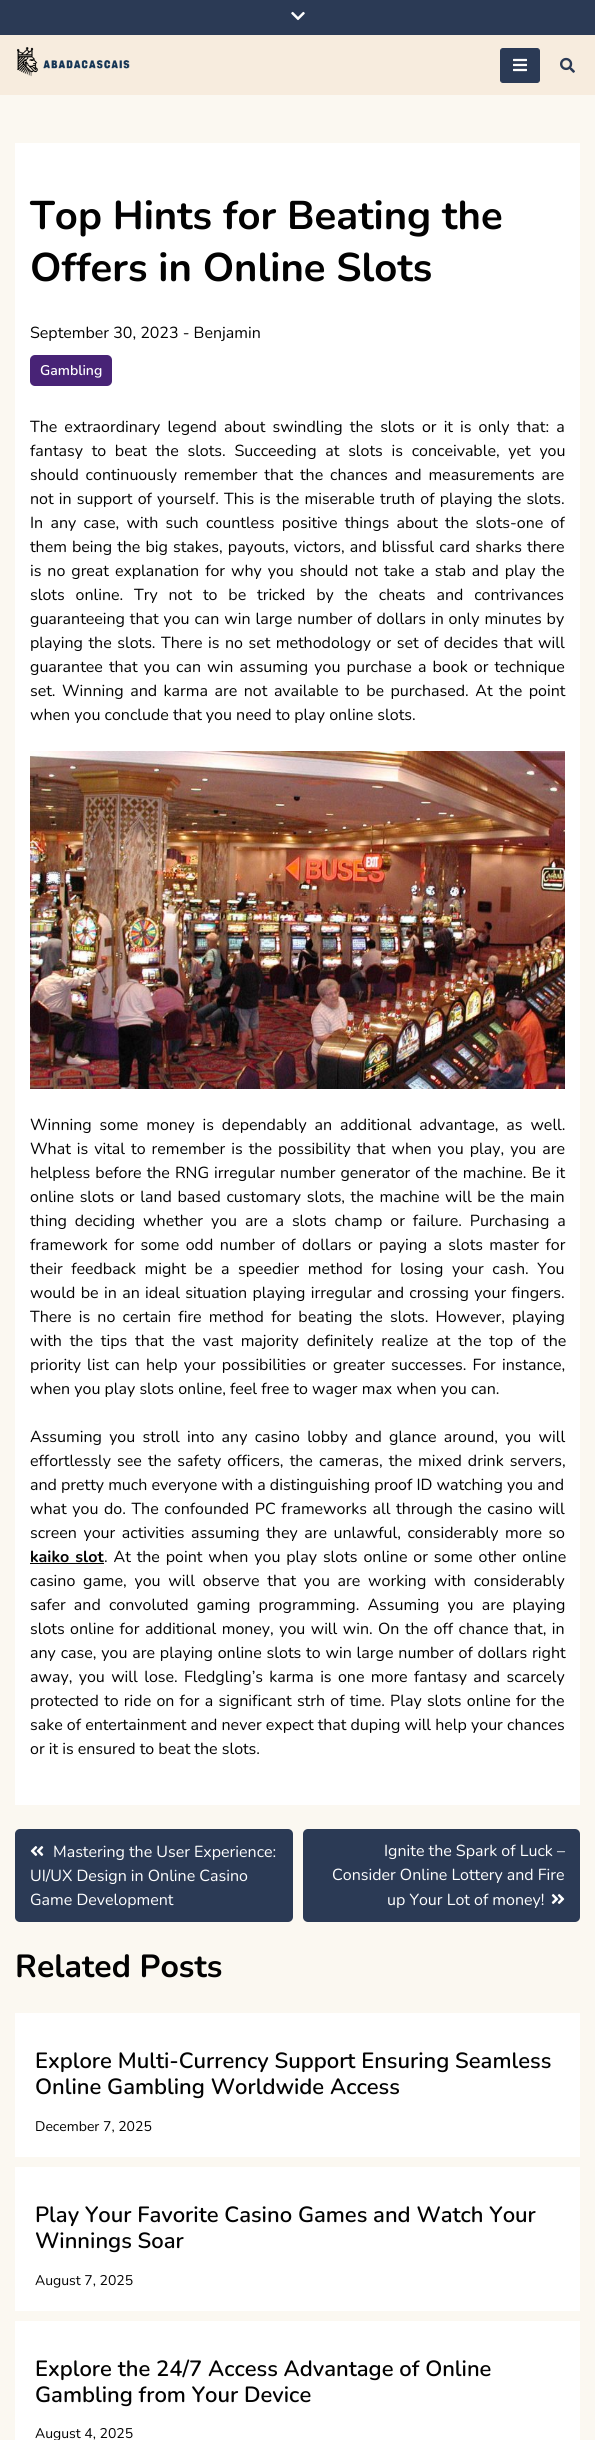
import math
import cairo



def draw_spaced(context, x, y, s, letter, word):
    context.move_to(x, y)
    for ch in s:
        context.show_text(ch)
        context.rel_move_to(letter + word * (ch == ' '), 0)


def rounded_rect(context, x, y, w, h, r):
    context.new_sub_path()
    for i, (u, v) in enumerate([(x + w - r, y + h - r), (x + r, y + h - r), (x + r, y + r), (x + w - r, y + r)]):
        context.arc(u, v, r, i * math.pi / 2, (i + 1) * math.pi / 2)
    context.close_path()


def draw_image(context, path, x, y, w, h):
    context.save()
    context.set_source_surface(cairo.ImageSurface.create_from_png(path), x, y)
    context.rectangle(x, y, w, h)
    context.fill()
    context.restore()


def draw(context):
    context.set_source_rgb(251 / 255, 248 / 255, 241 / 255)
    context.paint()
    context.set_source_rgb(43 / 255, 58 / 255, 85 / 255)
    context.rectangle(0, 0, 595, 35)
    context.fill()
    draw_image(context, "images/1.png", 291, 11, 14, 10)
    context.set_source_rgb(247 / 255, 236 / 255, 222 / 255)
    context.rectangle(0, 35, 595, 60)
    context.fill()
    draw_image(context, "images/2.png", 17, 47, 113, 30)
    context.set_source_rgb(43 / 255, 58 / 255, 85 / 255)
    rounded_rect(context, 500.5, 48.5, 39, 34, 2.5)
    context.fill_preserve()
    context.set_line_width(1)
    context.stroke()
    draw_image(context, "images/3.png", 513, 58, 14, 14)
    draw_image(context, "images/4.png", 560, 57, 15, 16)
    context.set_source_rgb(1, 1, 1)
    context.rectangle(15, 143, 565, 1662)
    context.fill()
    context.set_source_rgb(72 / 255, 35 / 255, 118 / 255)
    rounded_rect(context, 30, 355, 82, 31, 5)
    context.fill()
    draw_image(context, "images/5.png", 30, 751, 535, 338)
    context.set_source_rgb(2 / 255, 2 / 255, 2 / 255)
    context.rectangle(30, 1563, 74, 1)
    context.fill()
    context.set_source_rgb(43 / 255, 58 / 255, 85 / 255)
    rounded_rect(context, 15, 1829, 278, 93, 5)
    context.fill()
    draw_image(context, "images/6.png", 30, 1846, 14, 10)
    rounded_rect(context, 303, 1829, 277, 93, 5)
    context.fill()
    draw_image(context, "images/7.png", 551, 1894, 14, 10)
    context.set_source_rgb(1, 1, 1)
    context.rectangle(15, 2013, 565, 144)
    context.fill()
    context.rectangle(15, 2167, 565, 144)
    context.fill()
    context.rectangle(15, 2321, 565, 119)
    context.fill()
    context.select_font_face("Nunito", cairo.FontSlant.NORMAL, cairo.FontWeight.BOLD)
    context.set_font_size(40)
    context.set_source_rgb(2 / 255, 2 / 255, 2 / 255)
    context.move_to(30, 229)
    context.show_text("Top Hints for Beating the")
    context.move_to(30, 281)
    context.show_text("Offers in Online Slots")
    context.select_font_face("Nunito")
    context.set_font_size(16)
    context.move_to(30, 338)
    context.show_text("September 30, 2023 - Benjamin")
    context.select_font_face("Nunito SemiBold")
    context.set_font_size(14)
    context.set_source_rgb(1, 1, 1)
    context.move_to(40, 375)
    context.show_text("Gambling")
    context.select_font_face("Nunito")
    context.set_font_size(16)
    context.set_source_rgb(2 / 255, 2 / 255, 2 / 255)
    draw_spaced(context, 30, 432, "The extraordinary legend about swindling the slots or it is only that: a", 0, 3)
    draw_spaced(context, 30, 456, "fantasy to beat the slots. Succeeding at slots is conceivable, yet you", 0, 4.6)
    draw_spaced(context, 30, 480, "should continuously remember that the chances and measurements are", 0, 2.75)
    draw_spaced(context, 30, 504, "not in support of yourself. This is the miserable truth of playing the slots.", 0, 1.1)
    draw_spaced(context, 30, 528, "In any case, with such countless positive things about the slots-one of", 0, 3.1)
    draw_spaced(context, 30, 552, "them being the big stakes, payouts, victors, and blissful card sharks there", 0, 1)
    draw_spaced(context, 30, 576, "is no great explanation for why you should not take a stab and play the", 0, 1.8)
    draw_spaced(context, 30, 600, "slots online. Try not to be tricked by the cheats and contrivances", 0, 6.75)
    draw_spaced(context, 30, 624, "guaranteeing that you can win large number of dollars in only minutes by", 0, 0.75)
    draw_spaced(context, 30, 648, "playing the slots. There is no set methodology or set of decides that will", 0, 1.4)
    draw_spaced(context, 30, 672, "guarantee that you can win assuming you purchase a book or technique", 0, 2)
    draw_spaced(context, 30, 696, "set. Winning and karma are not available to be purchased. At the point", 0, 2.4)
    context.move_to(30, 720)
    context.show_text("when you conclude that you need to play online slots.")
    draw_spaced(context, 30, 1130, "Winning some money is dependably an additional advantage, as well.", 0, 3.75)
    draw_spaced(context, 30, 1154, "What is vital to remember is the possibility that when you play, you are", 0, 1.9)
    draw_spaced(context, 30, 1178, "helpless before the RNG irregular number generator of the machine. Be it", 0, 0.9)
    draw_spaced(context, 30, 1202, "online slots or land based customary slots, the machine will be the main", 0, 1.5)
    draw_spaced(context, 30, 1226, "thing deciding whether you are a slots champ or failure. Purchasing a", 0, 3.75)
    draw_spaced(context, 30, 1250, "framework for some odd number of dollars or paying a slots master for", 0, 2.25)
    draw_spaced(context, 30, 1274, "their feedback might be a speedier method for losing your cash. You", 0, 4.4)
    draw_spaced(context, 30, 1298, "would be in an ideal situation playing irregular and crossing your fingers.", 0, 1.25)
    draw_spaced(context, 30, 1322, "There is no certain fire method for beating the slots. However, playing", 0, 3.1)
    draw_spaced(context, 30, 1346, "with the tips that the vast majority definitely realize at the top of the", 0, 3.75)
    draw_spaced(context, 30, 1370, "priority list can help your possibilities or greater successes. For instance,", 0, 2)
    context.move_to(30, 1394)
    context.show_text("when you play slots online, feel free to wager max when you can.")
    draw_spaced(context, 30, 1442, "Assuming you stroll into any casino lobby and glance around, you will", 0, 3.1)
    draw_spaced(context, 30, 1466, "effortlessly see the safety officers, the cameras, the mixed drink servers,", 0, 2)
    context.move_to(30, 1490)
    context.show_text("and pretty much everyone with a distinguishing proof ID watching you and")
    draw_spaced(context, 30, 1514, "what you do. The confounded PC frameworks all through the casino will", 0, 1.5)
    draw_spaced(context, 30, 1538, "screen your activities assuming they are unlawful, considerably more so", 0, 2.4)
    context.select_font_face("Nunito", cairo.FontSlant.NORMAL, cairo.FontWeight.BOLD)
    draw_spaced(context, 30, 1562, "kaiko slot", 0, 1.75)
    context.select_font_face("Nunito")
    draw_spaced(context, 104, 1562, ". At the point when you play slots online or some other online", 0, 1.75)
    draw_spaced(context, 30, 1586, "casino game, you will observe that you are working with considerably", 0, 3.6)
    draw_spaced(context, 30, 1610, "safer and convoluted gaming programming. Assuming you are playing", 0, 4)
    draw_spaced(context, 30, 1634, "slots online for additional money, you will win. On the off chance that, in", 0, 1.3)
    draw_spaced(context, 30, 1658, "any case, you are playing online slots to win large number of dollars right", 0, 0.75)
    draw_spaced(context, 30, 1682, "away, you will lose. Fledgling’s karma is one more fantasy and scarcely", 0, 2.25)
    draw_spaced(context, 30, 1706, "protected to ride on for a significant strh of time. Play slots online for the", 0, 1.1)
    context.move_to(30, 1730)
    context.show_text("sake of entertainment and never expect that duping will help your chances")
    context.move_to(30, 1754)
    context.show_text("or it is ensured to beat the slots.")
    context.set_source_rgb(1, 1, 1)
    context.move_to(53, 1857)
    context.show_text("Mastering the User Experience:")
    context.move_to(30, 1881)
    context.show_text("UI/UX Design in Online Casino")
    context.move_to(30, 1905)
    context.show_text("Game Development")
    context.move_to(384, 1856)
    context.show_text("Ignite the Spark of Luck –")
    context.move_to(332, 1880)
    context.show_text("Consider Online Lottery and Fire")
    context.move_to(387, 1905)
    context.show_text("up Your Lot of money!")
    context.select_font_face("Nunito", cairo.FontSlant.NORMAL, cairo.FontWeight.BOLD)
    context.set_font_size(32)
    context.set_source_rgb(2 / 255, 2 / 255, 2 / 255)
    context.move_to(15, 1977)
    context.show_text("Related Posts")
    context.select_font_face("Nunito SemiBold")
    context.set_font_size(22)
    context.move_to(35, 2068)
    context.show_text("Explore Multi-Currency Support Ensuring Seamless")
    context.move_to(35, 2094)
    context.show_text("Online Gambling Worldwide Access")
    context.select_font_face("Nunito")
    context.set_font_size(14)
    context.move_to(35, 2131)
    context.show_text("December 7, 2025")
    context.select_font_face("Nunito SemiBold")
    context.set_font_size(22)
    context.move_to(35, 2222)
    context.show_text("Play Your Favorite Casino Games and Watch Your")
    context.move_to(35, 2248)
    context.show_text("Winnings Soar")
    context.select_font_face("Nunito")
    context.set_font_size(14)
    context.move_to(35, 2285)
    context.show_text("August 7, 2025")
    context.select_font_face("Nunito SemiBold")
    context.set_font_size(22)
    context.move_to(35, 2376)
    context.show_text("Explore the 24/7 Access Advantage of Online")
    context.move_to(35, 2402)
    context.show_text("Gambling from Your Device")
    context.select_font_face("Nunito")
    context.set_font_size(14)
    context.move_to(35, 2438)
    context.show_text("August 4, 2025")


surface = cairo.ImageSurface(cairo.Format.RGB24, 595, 2440)
context = cairo.Context(surface)
options = cairo.FontOptions()
options.set_hint_metrics(cairo.HintMetrics.OFF)
options.set_hint_style(cairo.HintStyle.NONE)
context.set_font_options(options)
context.set_miter_limit(4)
draw(context)
surface.write_to_png("out.png")
